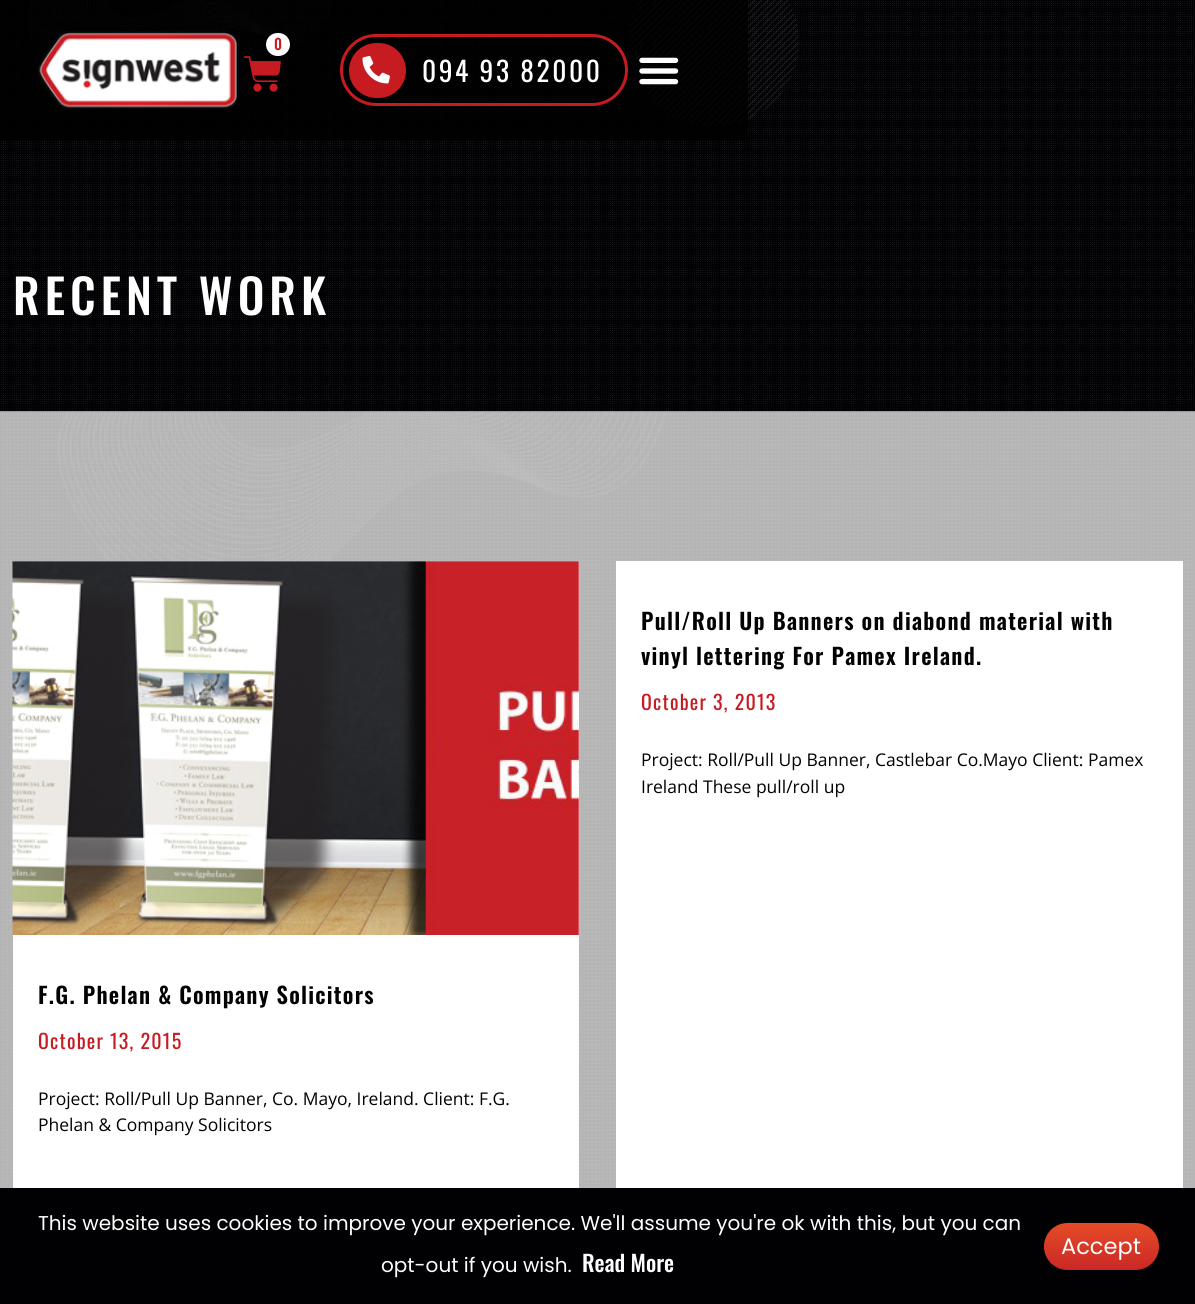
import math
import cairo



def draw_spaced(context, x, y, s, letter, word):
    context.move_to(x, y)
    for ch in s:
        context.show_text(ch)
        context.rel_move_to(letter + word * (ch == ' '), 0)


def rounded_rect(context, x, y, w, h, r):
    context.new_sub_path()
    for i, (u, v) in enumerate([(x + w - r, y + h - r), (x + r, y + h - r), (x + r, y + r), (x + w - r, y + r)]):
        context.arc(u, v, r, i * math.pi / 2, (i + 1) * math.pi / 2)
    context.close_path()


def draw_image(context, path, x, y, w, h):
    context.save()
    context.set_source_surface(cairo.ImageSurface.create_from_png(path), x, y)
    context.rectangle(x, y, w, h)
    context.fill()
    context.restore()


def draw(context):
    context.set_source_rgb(1, 1, 1)
    context.paint()
    draw_image(context, "images/5.png", 0, 0, 1195, 412)
    context.set_source_rgba(0, 0, 0, 0.8)
    context.rectangle(1, 0, 747, 140)
    context.fill()
    draw_image(context, "images/1.png", 37, 31, 202, 78)
    context.set_source_rgb(1, 1, 1)
    rounded_rect(context, 266, 33, 24, 23, 11.5)
    context.fill()
    draw_image(context, "images/2.png", 243, 56, 38, 36)
    rounded_rect(context, 341.5, 35.5, 285, 69, 34.5)
    context.set_source_rgb(199 / 255, 27 / 255, 34 / 255)
    context.set_line_width(3)
    context.stroke()
    rounded_rect(context, 349, 43, 57, 55, 27.5)
    context.fill()
    draw_image(context, "images/3.png", 362, 56, 28, 28)
    draw_image(context, "images/4.png", 639, 57, 40, 28)
    draw_image(context, "images/6.png", 0, 411, 1195, 777)
    context.set_source_rgb(1, 1, 1)
    context.rectangle(616, 561, 567, 627)
    context.fill()
    context.rectangle(13, 561, 566, 627)
    context.fill()
    draw_image(context, "images/7.png", 12, 561, 567, 374)
    context.set_source_rgb(1 / 255, 1 / 255, 3 / 255)
    context.rectangle(0, 1188, 1195, 116)
    context.fill()
    gradient = cairo.LinearGradient(1101, 1270, 1101, 1223)
    gradient.add_color_stop_rgba(0, 202 / 255, 40 / 255, 38 / 255, 1)
    gradient.add_color_stop_rgba(0.98, 229 / 255, 75 / 255, 39 / 255, 1)
    context.set_source(gradient)
    rounded_rect(context, 1044, 1223, 115, 47, 23.5)
    context.fill()
    context.select_font_face("Oswald Medium")
    context.set_font_size(15)
    context.set_source_rgb(199 / 255, 27 / 255, 34 / 255)
    draw_spaced(context, 274, 50, "0", 8, 0)
    context.select_font_face("Oswald")
    context.set_font_size(27.5)
    context.set_source_rgb(1, 1, 1)
    draw_spaced(context, 422, 82, "094 93 82000", 2.5, 0)
    context.select_font_face("Oswald Medium")
    context.set_font_size(47.5)
    draw_spaced(context, 13, 315, "RECENT WORK", 5, 0)
    context.select_font_face("Oswald SemiBold")
    context.set_font_size(22.5)
    context.set_source_rgb(1 / 255, 1 / 255, 3 / 255)
    draw_spaced(context, 641, 630, "Pull/Roll Up Banners on diabond material with", 1.25, 0)
    draw_spaced(context, 641, 665, "vinyl lettering For Pamex Ireland.", 1.25, 0)
    context.select_font_face("Oswald")
    context.set_font_size(20)
    context.set_source_rgb(199 / 255, 27 / 255, 34 / 255)
    draw_spaced(context, 641, 710, "October 3, 2013", 1.25, 0)
    context.select_font_face("Open Sans")
    context.set_font_size(17.5)
    context.set_source_rgb(1 / 255, 1 / 255, 3 / 255)
    context.move_to(641, 766)
    context.show_text("Project: Roll/Pull Up Banner, Castlebar Co.Mayo Client: Pamex")
    context.move_to(641, 793)
    context.show_text("Ireland These pull/roll up")
    context.select_font_face("Oswald SemiBold")
    context.set_font_size(22.5)
    draw_spaced(context, 38, 1004, "F.G. Phelan & Company Solicitors", 1.25, 0)
    context.select_font_face("Oswald")
    context.set_font_size(20)
    context.set_source_rgb(199 / 255, 27 / 255, 34 / 255)
    draw_spaced(context, 38, 1049, "October 13, 2015", 1.25, 0)
    context.select_font_face("Open Sans")
    context.set_font_size(17.5)
    context.set_source_rgb(1 / 255, 1 / 255, 3 / 255)
    context.move_to(38, 1105)
    context.show_text("Project: Roll/Pull Up Banner, Co. Mayo, Ireland. Client: F.G.")
    context.move_to(38, 1131)
    context.show_text("Phelan & Company Solicitors")
    context.select_font_face("Poppins")
    context.set_font_size(20)
    context.set_source_rgb(1, 1, 1)
    context.move_to(38, 1230)
    context.show_text("This website uses cookies to improve your experience. We'll assume you're ok with this, but you can")
    context.move_to(381, 1272)
    context.show_text("opt-out if you wish.")
    context.select_font_face("Oswald Medium")
    context.set_font_size(22.5)
    context.move_to(582, 1272)
    context.show_text("Read More")
    context.select_font_face("Poppins")
    context.move_to(1061, 1254)
    context.show_text("Accept")


surface = cairo.ImageSurface(cairo.Format.RGB24, 1195, 1304)
context = cairo.Context(surface)
options = cairo.FontOptions()
options.set_hint_metrics(cairo.HintMetrics.OFF)
options.set_hint_style(cairo.HintStyle.NONE)
context.set_font_options(options)
context.set_miter_limit(4)
draw(context)
surface.write_to_png("out.png")
